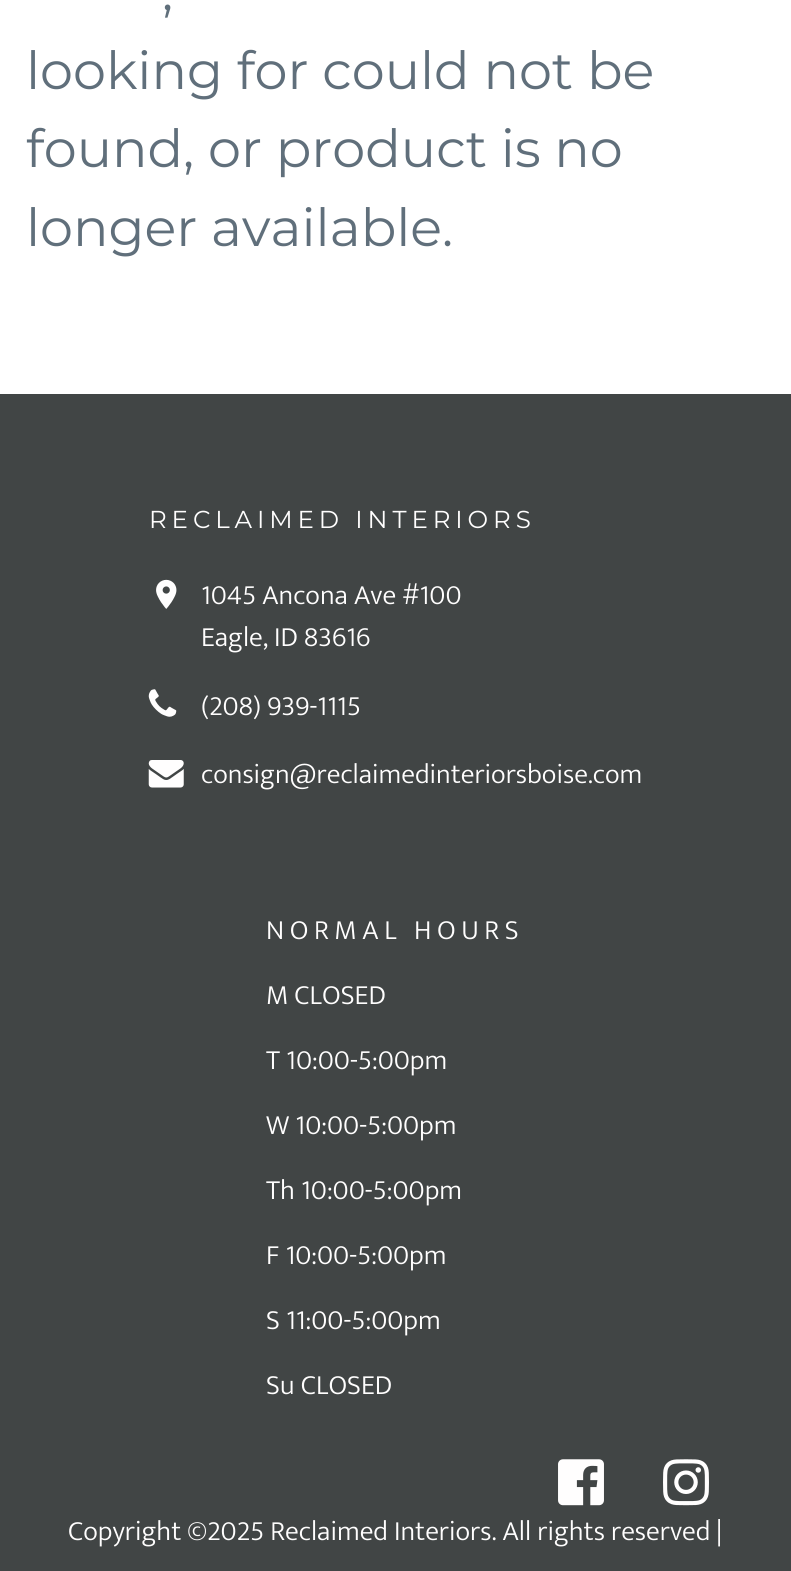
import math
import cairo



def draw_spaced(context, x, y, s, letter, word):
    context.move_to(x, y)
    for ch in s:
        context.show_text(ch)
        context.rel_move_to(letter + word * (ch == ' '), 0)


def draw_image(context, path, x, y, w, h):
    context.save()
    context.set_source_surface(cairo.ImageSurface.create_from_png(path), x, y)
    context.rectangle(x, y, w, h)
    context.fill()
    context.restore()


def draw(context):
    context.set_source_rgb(1, 1, 1)
    context.paint()
    context.set_source_rgb(65 / 255, 69 / 255, 69 / 255)
    context.rectangle(0, 394, 791, 1177)
    context.fill()
    draw_image(context, "images/1.png", 156, 579, 21, 30)
    draw_image(context, "images/2.png", 148, 689, 29, 28)
    draw_image(context, "images/3.png", 148, 760, 36, 28)
    draw_image(context, "images/4.png", 558, 1459, 46, 47)
    draw_image(context, "images/5.png", 663, 1459, 46, 47)
    context.select_font_face("Montserrat")
    context.set_font_size(52.5)
    context.set_source_rgb(96 / 255, 111 / 255, 123 / 255)
    context.move_to(162, 10)
    context.show_text(",")
    context.move_to(26, 89)
    context.show_text("looking for could not be")
    context.move_to(26, 167)
    context.show_text("found, or product is no")
    context.move_to(26, 246)
    context.show_text("longer available.")
    context.set_font_size(24.5)
    context.set_source_rgb(1, 254 / 255, 254 / 255)
    draw_spaced(context, 149, 528, "RECLAIMED INTERIORS", 4.9, 0)
    context.select_font_face("Mukta Light")
    context.set_font_size(28)
    context.move_to(201, 604)
    context.show_text("1045 Ancona Ave #100")
    context.move_to(201, 646)
    context.show_text("Eagle, ID 83616")
    context.move_to(201, 715)
    context.show_text("(208) 939-1115")
    context.move_to(201, 783)
    context.show_text("consign@reclaimedinteriorsboise.com")
    draw_spaced(context, 266, 939, "NORMAL HOURS", 5.6, 0)
    context.move_to(266, 1004)
    context.show_text("M CLOSED")
    context.move_to(266, 1069)
    context.show_text("T 10:00-5:00pm")
    context.move_to(266, 1134)
    context.show_text("W 10:00-5:00pm")
    context.move_to(266, 1199)
    context.show_text("Th 10:00-5:00pm")
    context.move_to(266, 1264)
    context.show_text("F 10:00-5:00pm")
    context.move_to(266, 1329)
    context.show_text("S 11:00-5:00pm")
    context.move_to(266, 1394)
    context.show_text("Su CLOSED")
    context.move_to(68, 1540)
    context.show_text("Copyright ©2025 Reclaimed Interiors. All rights reserved |")


surface = cairo.ImageSurface(cairo.Format.RGB24, 791, 1571)
context = cairo.Context(surface)
options = cairo.FontOptions()
options.set_hint_metrics(cairo.HintMetrics.OFF)
options.set_hint_style(cairo.HintStyle.NONE)
context.set_font_options(options)
context.set_miter_limit(4)
draw(context)
surface.write_to_png("out.png")
